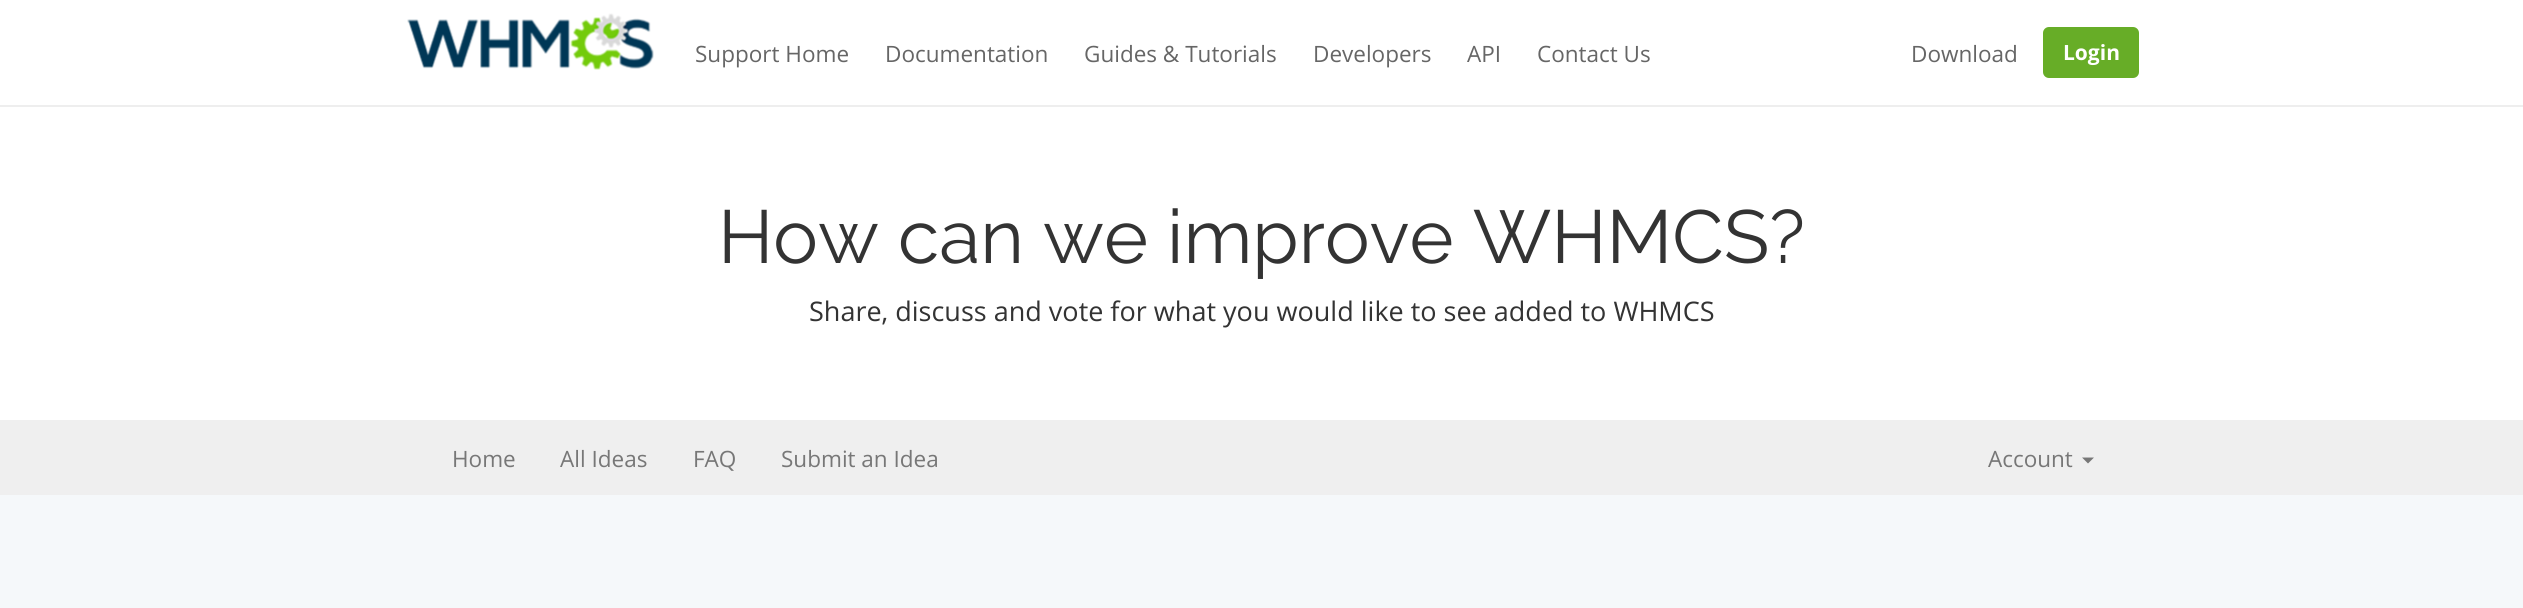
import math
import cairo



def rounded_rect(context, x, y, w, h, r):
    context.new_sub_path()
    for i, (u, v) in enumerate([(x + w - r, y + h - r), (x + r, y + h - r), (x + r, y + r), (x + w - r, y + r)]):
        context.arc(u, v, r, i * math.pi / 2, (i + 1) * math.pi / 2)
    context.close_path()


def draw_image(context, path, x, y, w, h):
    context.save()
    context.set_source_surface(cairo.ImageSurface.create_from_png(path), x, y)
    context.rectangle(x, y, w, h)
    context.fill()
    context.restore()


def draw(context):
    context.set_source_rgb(1, 1, 1)
    context.paint()
    context.rectangle(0, 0, 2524, 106)
    context.set_source_rgb(238 / 255, 238 / 255, 238 / 255)
    context.stroke()
    context.set_source_rgb(1, 1, 1)
    context.rectangle(0, 0, 2523, 105)
    context.fill()
    draw_image(context, "images/1.png", 407, 13, 247, 57)
    context.set_source_rgb(103 / 255, 173 / 255, 39 / 255)
    rounded_rect(context, 2044, 28, 94, 49, 5)
    context.fill_preserve()
    context.stroke()
    context.set_source_rgb(239 / 255, 239 / 255, 239 / 255)
    context.rectangle(0, 420, 2523, 75)
    context.fill()
    context.set_source_rgb(119 / 255, 119 / 255, 119 / 255)
    context.new_path()
    context.move_to(2082, 457.5)
    context.line_to(2094, 457.5)
    context.line_to(2088, 463.5)
    context.close_path()
    context.fill()
    context.set_source_rgb(245 / 255, 248 / 255, 250 / 255)
    context.rectangle(0, 495, 2523, 113)
    context.fill()
    context.select_font_face("Open Sans")
    context.set_font_size(22.5)
    context.set_source_rgb(102 / 255, 102 / 255, 102 / 255)
    context.move_to(695, 62)
    context.show_text("Support Home")
    context.move_to(885, 62)
    context.show_text("Documentation")
    context.move_to(1084, 62)
    context.show_text("Guides & Tutorials")
    context.move_to(1313, 62)
    context.show_text("Developers")
    context.move_to(1467, 62)
    context.show_text("API")
    context.move_to(1537, 62)
    context.show_text("Contact Us")
    context.move_to(1911, 62)
    context.show_text("Download")
    context.select_font_face("Open Sans", cairo.FontSlant.NORMAL, cairo.FontWeight.BOLD)
    context.set_font_size(21)
    context.set_source_rgb(1, 1, 1)
    context.move_to(2063, 60)
    context.show_text("Login")
    context.select_font_face("Raleway")
    context.set_font_size(75)
    context.set_source_rgb(51 / 255, 51 / 255, 51 / 255)
    context.move_to(718, 263)
    context.show_text("How can we improve WHMCS?")
    context.select_font_face("Open Sans")
    context.set_font_size(27)
    context.move_to(809, 321)
    context.show_text("Share, discuss and vote for what you would like to see added to WHMCS")
    context.set_font_size(22.5)
    context.set_source_rgb(119 / 255, 119 / 255, 119 / 255)
    context.move_to(452, 467)
    context.show_text("Home")
    context.move_to(560, 467)
    context.show_text("All Ideas")
    context.move_to(693, 467)
    context.show_text("FAQ")
    context.move_to(781, 467)
    context.show_text("Submit an Idea")
    context.move_to(1988, 467)
    context.show_text("Account")


surface = cairo.ImageSurface(cairo.Format.RGB24, 2523, 608)
context = cairo.Context(surface)
options = cairo.FontOptions()
options.set_hint_metrics(cairo.HintMetrics.OFF)
options.set_hint_style(cairo.HintStyle.NONE)
context.set_font_options(options)
context.set_miter_limit(4)
draw(context)
surface.write_to_png("out.png")
